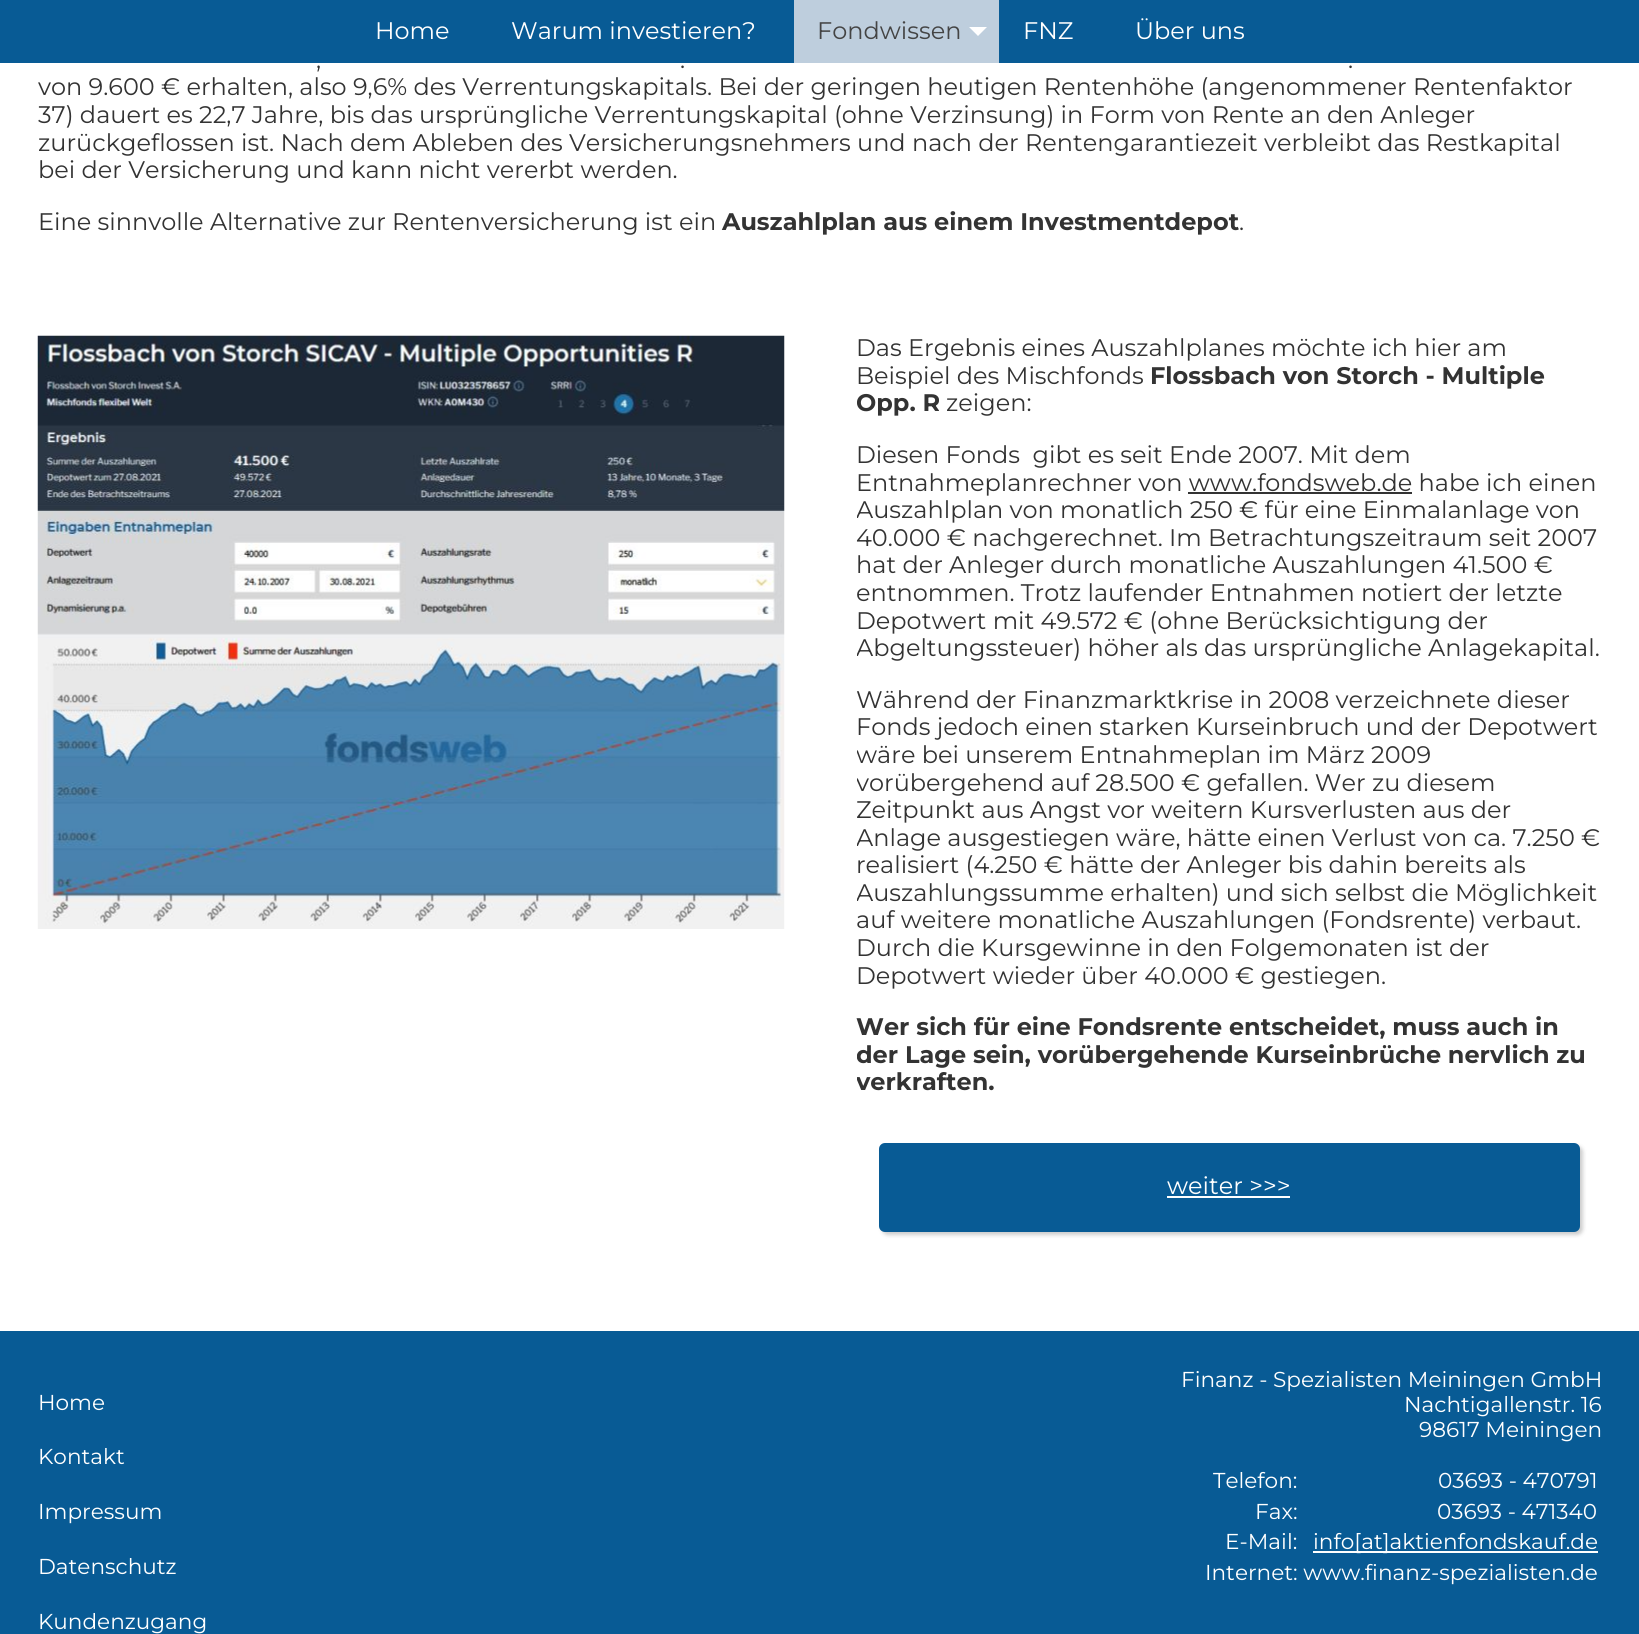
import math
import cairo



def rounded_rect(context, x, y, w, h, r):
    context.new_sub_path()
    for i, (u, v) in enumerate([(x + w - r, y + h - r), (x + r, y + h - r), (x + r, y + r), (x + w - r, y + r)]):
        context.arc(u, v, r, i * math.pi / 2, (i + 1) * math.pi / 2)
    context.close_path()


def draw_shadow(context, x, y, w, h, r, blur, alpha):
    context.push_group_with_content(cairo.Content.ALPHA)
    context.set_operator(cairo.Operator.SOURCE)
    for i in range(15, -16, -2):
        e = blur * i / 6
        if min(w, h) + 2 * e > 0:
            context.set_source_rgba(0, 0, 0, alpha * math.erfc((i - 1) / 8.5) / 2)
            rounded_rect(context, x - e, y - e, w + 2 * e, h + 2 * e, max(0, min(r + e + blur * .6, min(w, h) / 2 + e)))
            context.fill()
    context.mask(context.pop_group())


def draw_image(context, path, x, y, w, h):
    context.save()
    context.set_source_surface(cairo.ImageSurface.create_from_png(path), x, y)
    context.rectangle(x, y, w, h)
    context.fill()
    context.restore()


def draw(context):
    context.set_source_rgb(1, 1, 1)
    context.paint()
    context.set_source_rgb(8 / 255, 91 / 255, 149 / 255)
    context.rectangle(0, 0, 1639, 63)
    context.fill()
    context.set_source_rgb(190 / 255, 206 / 255, 221 / 255)
    context.rectangle(794, 0, 205, 63)
    context.fill()
    context.set_source_rgb(1, 1, 1)
    context.new_path()
    context.move_to(969, 27)
    context.line_to(987, 27)
    context.line_to(978, 36)
    context.close_path()
    context.fill()
    draw_image(context, "images/1.png", 37, 335, 748, 594)
    context.set_source_rgb(51 / 255, 51 / 255, 51 / 255)
    context.rectangle(1188, 492, 224, 2)
    context.fill()
    context.set_source_rgb(0, 0, 0)
    draw_shadow(context, 882, 1146, 701, 89, 6, 2, 0.2)
    context.set_source_rgb(8 / 255, 91 / 255, 149 / 255)
    rounded_rect(context, 879, 1143, 701, 89, 6)
    context.fill()
    context.set_source_rgb(1, 1, 1)
    context.rectangle(1167, 1196, 123, 2)
    context.fill()
    context.set_source_rgb(8 / 255, 91 / 255, 149 / 255)
    context.rectangle(0, 1331, 1639, 303)
    context.fill()
    context.set_source_rgb(1, 1, 1)
    context.rectangle(1313, 1551, 285, 2)
    context.fill()
    context.select_font_face("Montserrat Thin")
    context.set_font_size(24)
    context.move_to(375, 39)
    context.show_text("Home")
    context.move_to(511, 39)
    context.show_text("Warum investieren?")
    context.set_source_rgb(68 / 255, 68 / 255, 68 / 255)
    context.move_to(817, 39)
    context.show_text("Fondwissen")
    context.set_source_rgb(1, 1, 1)
    context.move_to(1023, 39)
    context.show_text("FNZ")
    context.move_to(1135, 39)
    context.show_text("Über uns")
    context.set_source_rgb(51 / 255, 51 / 255, 51 / 255)
    context.move_to(316, 68)
    context.show_text(",")
    context.move_to(680, 68)
    context.show_text(".")
    context.move_to(1348, 68)
    context.show_text(".")
    context.move_to(38, 95)
    context.show_text("von 9.600 € erhalten, also 9,6% des Verrentungskapitals. Bei der geringen heutigen Rentenhöhe (angenommener Rentenfaktor")
    context.move_to(38, 123)
    context.show_text("37) dauert es 22,7 Jahre, bis das ursprüngliche Verrentungskapital (ohne Verzinsung) in Form von Rente an den Anleger")
    context.move_to(38, 151)
    context.show_text("zurückgeflossen ist. Nach dem Ableben des Versicherungsnehmers und nach der Rentengarantiezeit verbleibt das Restkapital")
    context.move_to(38, 178)
    context.show_text("bei der Versicherung und kann nicht vererbt werden.")
    context.move_to(38, 230)
    context.show_text("Eine sinnvolle Alternative zur Rentenversicherung ist ein")
    context.select_font_face("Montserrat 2 Thin")
    context.move_to(722, 230)
    context.show_text("Auszahlplan aus einem Investmentdepot")
    context.select_font_face("Montserrat Thin")
    context.move_to(1239, 230)
    context.show_text(".")
    context.move_to(856, 356)
    context.show_text("Das Ergebnis eines Auszahlplanes möchte ich hier am")
    context.move_to(856, 384)
    context.show_text("Beispiel des Mischfonds")
    context.select_font_face("Montserrat 2 Thin")
    context.move_to(1150, 384)
    context.show_text("Flossbach von Storch - Multiple")
    context.save()
    context.rectangle(857, 336, 745, 785)
    context.clip()
    context.move_to(856, 411)
    context.show_text("Opp. R")
    context.restore()
    context.select_font_face("Montserrat Thin")
    context.move_to(946, 411)
    context.show_text("zeigen:")
    context.move_to(856, 463)
    context.show_text("Diesen Fonds  gibt es seit Ende 2007. Mit dem")
    context.move_to(856, 491)
    context.show_text("Entnahmeplanrechner von www.fondsweb.de habe ich einen")
    context.save()
    context.rectangle(857, 336, 745, 785)
    context.clip()
    context.move_to(856, 518)
    context.show_text("Auszahlplan von monatlich 250 € für eine Einmalanlage von")
    context.restore()
    context.move_to(856, 546)
    context.show_text("40.000 € nachgerechnet. Im Betrachtungszeitraum seit 2007")
    context.move_to(856, 573)
    context.show_text("hat der Anleger durch monatliche Auszahlungen 41.500 €")
    context.move_to(856, 601)
    context.show_text("entnommen. Trotz laufender Entnahmen notiert der letzte")
    context.move_to(856, 629)
    context.show_text("Depotwert mit 49.572 € (ohne Berücksichtigung der")
    context.save()
    context.rectangle(857, 336, 745, 785)
    context.clip()
    context.move_to(856, 656)
    context.show_text("Abgeltungssteuer) höher als das ursprüngliche Anlagekapital.")
    context.restore()
    context.move_to(856, 708)
    context.show_text("Während der Finanzmarktkrise in 2008 verzeichnete dieser")
    context.move_to(856, 735)
    context.show_text("Fonds jedoch einen starken Kurseinbruch und der Depotwert")
    context.save()
    context.rectangle(857, 336, 745, 785)
    context.clip()
    context.move_to(856, 763)
    context.show_text("wäre bei unserem Entnahmeplan im März 2009")
    context.move_to(856, 791)
    context.show_text("vorübergehend auf 28.500 € gefallen. Wer zu diesem")
    context.restore()
    context.move_to(856, 818)
    context.show_text("Zeitpunkt aus Angst vor weitern Kursverlusten aus der")
    context.save()
    context.rectangle(857, 336, 745, 785)
    context.clip()
    context.move_to(856, 846)
    context.show_text("Anlage ausgestiegen wäre, hätte einen Verlust von ca. 7.250 €")
    context.restore()
    context.move_to(856, 873)
    context.show_text("realisiert (4.250 € hätte der Anleger bis dahin bereits als")
    context.save()
    context.rectangle(857, 336, 745, 785)
    context.clip()
    context.move_to(856, 901)
    context.show_text("Auszahlungssumme erhalten) und sich selbst die Möglichkeit")
    context.restore()
    context.move_to(856, 928)
    context.show_text("auf weitere monatliche Auszahlungen (Fondsrente) verbaut.")
    context.move_to(856, 956)
    context.show_text("Durch die Kursgewinne in den Folgemonaten ist der")
    context.move_to(856, 984)
    context.show_text("Depotwert wieder über 40.000 € gestiegen.")
    context.select_font_face("Montserrat 2 Thin")
    context.move_to(856, 1035)
    context.show_text("Wer sich für eine Fondsrente entscheidet, muss auch in")
    context.save()
    context.rectangle(857, 336, 745, 785)
    context.clip()
    context.move_to(856, 1063)
    context.show_text("der Lage sein, vorübergehende Kurseinbrüche nervlich zu")
    context.move_to(856, 1090)
    context.show_text("verkraften.")
    context.restore()
    context.select_font_face("Montserrat Thin")
    context.set_source_rgb(1, 1, 1)
    context.move_to(1167, 1194)
    context.show_text("weiter >>>")
    context.set_font_size(21.6)
    context.move_to(38, 1410)
    context.show_text("Home")
    context.move_to(38, 1464)
    context.show_text("Kontakt")
    context.move_to(38, 1519)
    context.show_text("Impressum")
    context.move_to(38, 1574)
    context.show_text("Datenschutz")
    context.move_to(38, 1629)
    context.show_text("Kundenzugang")
    context.move_to(1181, 1387)
    context.show_text("Finanz - Spezialisten Meiningen GmbH")
    context.move_to(1404, 1412)
    context.show_text("Nachtigallenstr. 16")
    context.move_to(1419, 1437)
    context.show_text("98617 Meiningen")
    context.move_to(1213, 1488)
    context.show_text("Telefon:")
    context.move_to(1438, 1488)
    context.show_text("03693 - 470791")
    context.move_to(1255, 1519)
    context.show_text("Fax:")
    context.move_to(1437, 1519)
    context.show_text("03693 - 471340")
    context.move_to(1225, 1549)
    context.show_text("E-Mail:")
    context.move_to(1313, 1549)
    context.show_text("info[at]aktienfondskauf.de")
    context.move_to(1205, 1580)
    context.show_text("Internet: www.finanz-spezialisten.de")


surface = cairo.ImageSurface(cairo.Format.RGB24, 1639, 1634)
context = cairo.Context(surface)
options = cairo.FontOptions()
options.set_hint_metrics(cairo.HintMetrics.OFF)
options.set_hint_style(cairo.HintStyle.NONE)
context.set_font_options(options)
context.set_miter_limit(4)
draw(context)
surface.write_to_png("out.png")
